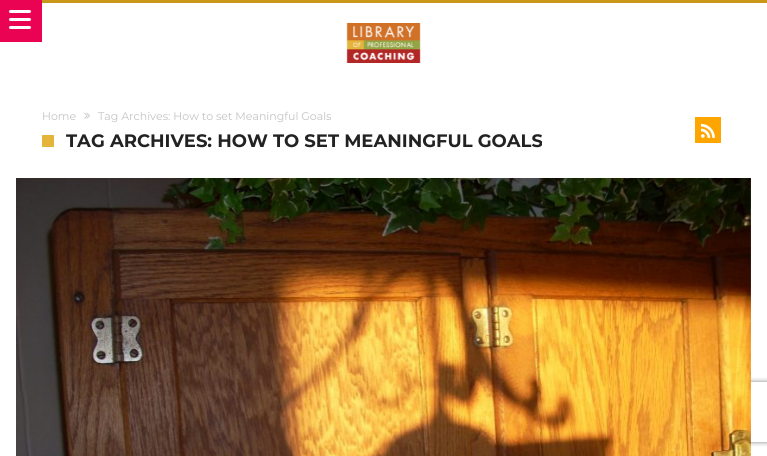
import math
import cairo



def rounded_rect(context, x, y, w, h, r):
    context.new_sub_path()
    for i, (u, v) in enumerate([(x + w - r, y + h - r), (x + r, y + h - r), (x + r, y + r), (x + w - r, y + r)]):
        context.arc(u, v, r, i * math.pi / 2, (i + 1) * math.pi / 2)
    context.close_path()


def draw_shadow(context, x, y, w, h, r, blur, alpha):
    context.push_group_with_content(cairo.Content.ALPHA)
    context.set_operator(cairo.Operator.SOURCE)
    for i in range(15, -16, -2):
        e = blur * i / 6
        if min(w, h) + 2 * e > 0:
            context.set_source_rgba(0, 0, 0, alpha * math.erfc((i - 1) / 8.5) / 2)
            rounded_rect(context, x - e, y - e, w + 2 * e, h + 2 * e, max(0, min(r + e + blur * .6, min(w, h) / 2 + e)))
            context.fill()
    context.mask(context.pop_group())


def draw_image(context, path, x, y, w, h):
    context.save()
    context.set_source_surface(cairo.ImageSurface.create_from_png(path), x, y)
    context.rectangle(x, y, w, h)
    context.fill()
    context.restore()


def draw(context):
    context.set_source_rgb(1, 1, 1)
    context.paint()
    context.set_source_rgb(201 / 255, 151 / 255, 26 / 255)
    context.rectangle(42, 0, 725, 3)
    context.fill()
    context.set_source_rgb(234 / 255, 2 / 255, 83 / 255)
    context.rectangle(0, 0, 42, 42)
    context.fill()
    context.set_source_rgb(1, 1, 1)
    rounded_rect(context, 9, 10, 22, 3, 1.5)
    context.fill()
    rounded_rect(context, 9, 18, 22, 3, 1.5)
    context.fill()
    rounded_rect(context, 9, 26, 22, 3, 1.5)
    context.fill()
    draw_image(context, "images/1.png", 346, 23, 75, 40)
    draw_image(context, "images/2.png", 84, 112, 6, 7)
    context.set_source_rgb(229 / 255, 180 / 255, 58 / 255)
    context.rectangle(42, 135, 12, 12)
    context.fill()
    context.set_source_rgb(1, 165 / 255, 0)
    context.rectangle(695, 117, 26, 26)
    context.fill()
    draw_image(context, "images/3.png", 701, 123, 14, 15)
    context.save()
    context.set_fill_rule(cairo.FillRule.EVEN_ODD)
    context.new_path()
    context.move_to(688, 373)
    context.line_to(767, 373)
    context.line_to(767, 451)
    context.line_to(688, 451)
    context.close_path()
    context.move_to(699, 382)
    context.line_to(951, 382)
    context.curve_to(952, 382, 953, 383, 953, 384)
    context.line_to(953, 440)
    context.curve_to(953, 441, 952, 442, 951, 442)
    context.line_to(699, 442)
    context.curve_to(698, 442, 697, 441, 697, 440)
    context.line_to(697, 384)
    context.curve_to(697, 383, 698, 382, 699, 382)
    context.close_path()
    context.clip()
    context.set_source_rgb(128 / 255, 128 / 255, 128 / 255)
    draw_shadow(context, 697, 382, 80, 60, 2, 2.5, 1)
    context.restore()
    draw_image(context, "images/4.png", 16, 178, 735, 278)
    context.select_font_face("Montserrat")
    context.set_font_size(11)
    context.set_source_rgb(195 / 255, 195 / 255, 195 / 255)
    context.move_to(42, 120)
    context.show_text("Home")
    context.move_to(98, 120)
    context.show_text("Tag Archives: How to set Meaningful Goals")
    context.select_font_face("Montserrat", cairo.FontSlant.NORMAL, cairo.FontWeight.BOLD)
    context.set_font_size(18)
    context.set_source_rgb(34 / 255, 34 / 255, 34 / 255)
    context.move_to(66, 147)
    context.show_text("TAG ARCHIVES: HOW TO SET MEANINGFUL GOALS")


surface = cairo.ImageSurface(cairo.Format.RGB24, 767, 456)
context = cairo.Context(surface)
options = cairo.FontOptions()
options.set_hint_metrics(cairo.HintMetrics.OFF)
options.set_hint_style(cairo.HintStyle.NONE)
context.set_font_options(options)
context.set_miter_limit(4)
draw(context)
surface.write_to_png("out.png")
